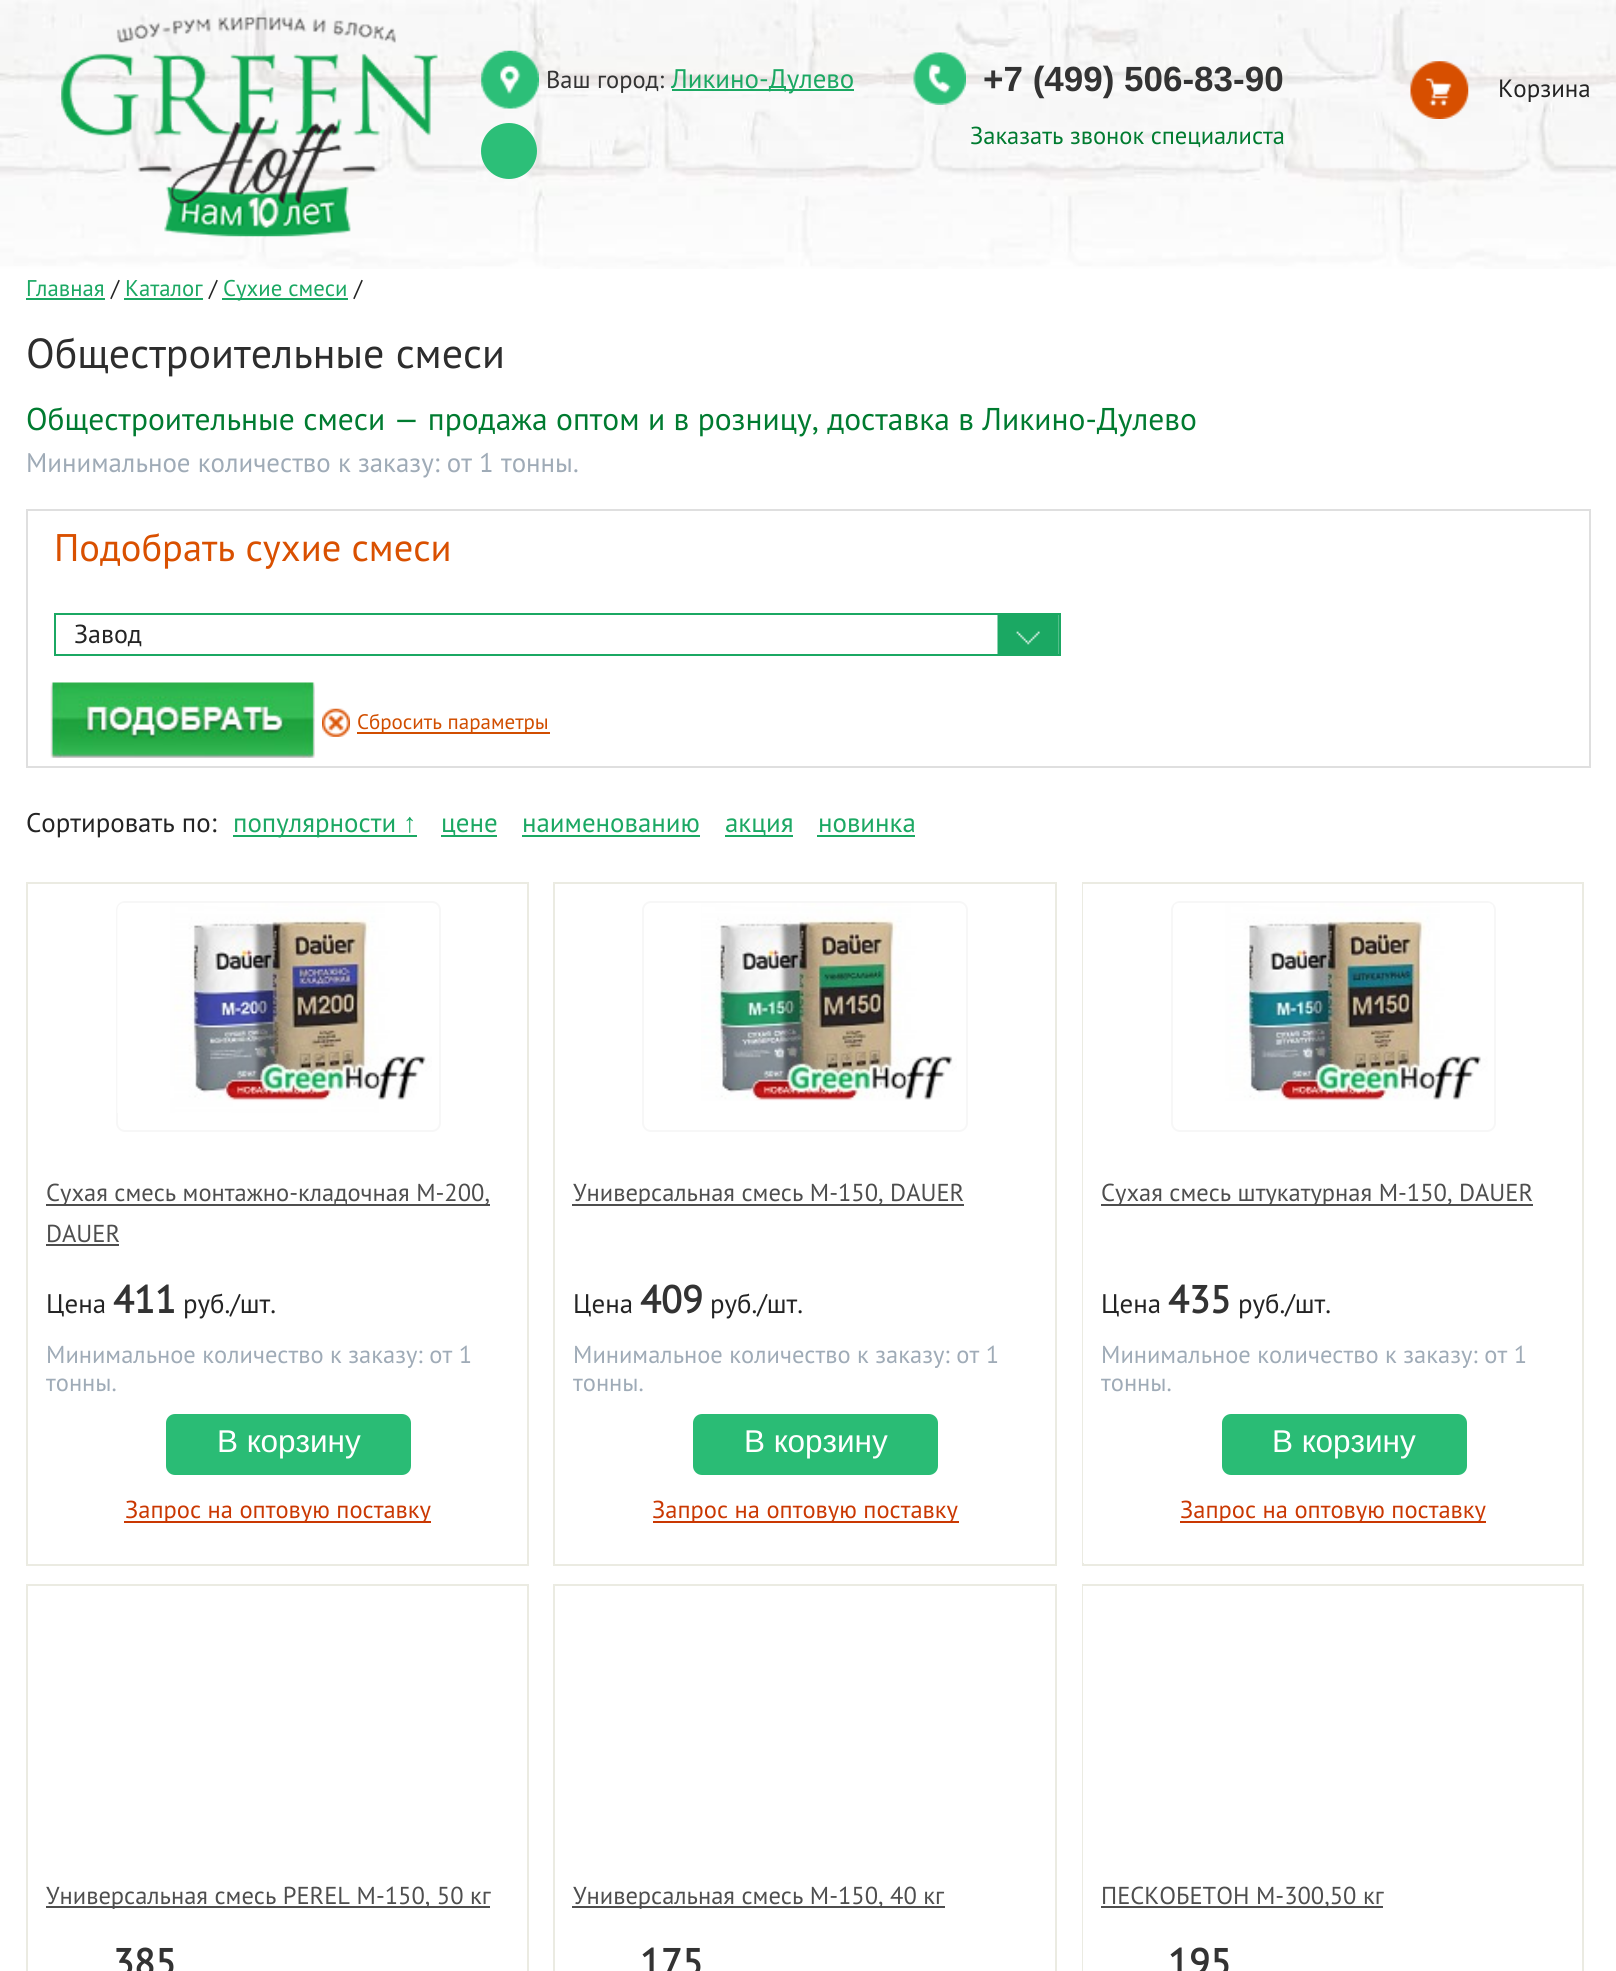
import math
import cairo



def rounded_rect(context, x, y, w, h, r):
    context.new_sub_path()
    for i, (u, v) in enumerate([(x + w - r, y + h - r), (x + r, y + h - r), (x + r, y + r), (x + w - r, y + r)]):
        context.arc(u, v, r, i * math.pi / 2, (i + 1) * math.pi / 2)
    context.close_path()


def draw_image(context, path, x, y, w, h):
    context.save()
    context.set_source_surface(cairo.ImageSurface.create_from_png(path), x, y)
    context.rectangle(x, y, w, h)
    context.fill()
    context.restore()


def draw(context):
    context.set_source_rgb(1, 1, 1)
    context.paint()
    draw_image(context, "images/1.png", 0, 0, 1616, 269)
    draw_image(context, "images/2.png", 61, 17, 377, 220)
    draw_image(context, "images/3.png", 481, 50, 58, 59)
    context.set_source_rgb(27 / 255, 168 / 255, 99 / 255)
    context.rectangle(672, 89, 182, 2)
    context.fill()
    draw_image(context, "images/4.png", 913, 52, 53, 53)
    draw_image(context, "images/5.png", 1410, 61, 59, 58)
    context.set_source_rgb(44 / 255, 191 / 255, 120 / 255)
    context.arc(509, 151, 28, 0, 2 * math.pi)
    context.fill()
    context.set_source_rgb(27 / 255, 168 / 255, 99 / 255)
    context.rectangle(26, 298, 79, 2)
    context.fill()
    context.rectangle(124, 298, 79, 2)
    context.fill()
    context.rectangle(222, 298, 126, 2)
    context.fill()
    context.rectangle(27, 510, 1563, 257)
    context.set_source_rgb(223 / 255, 223 / 255, 223 / 255)
    context.stroke()
    context.rectangle(55, 614, 1005, 41)
    context.set_source_rgb(27 / 255, 168 / 255, 99 / 255)
    context.stroke()
    draw_image(context, "images/6.png", 997, 615, 62, 39)
    draw_image(context, "images/7.png", 50, 682, 265, 76)
    draw_image(context, "images/8.png", 322, 708, 28, 29)
    context.set_source_rgb(209 / 255, 78 / 255, 0)
    context.rectangle(357, 732, 193, 2)
    context.fill()
    context.set_source_rgb(27 / 255, 168 / 255, 99 / 255)
    context.rectangle(233, 835, 184, 2)
    context.fill()
    context.rectangle(441, 835, 56, 2)
    context.fill()
    context.rectangle(522, 835, 178, 2)
    context.fill()
    context.rectangle(725, 835, 68, 2)
    context.fill()
    context.rectangle(817, 835, 98, 2)
    context.fill()
    context.rectangle(27, 883, 501, 682)
    context.set_source_rgb(235 / 255, 235 / 255, 226 / 255)
    context.stroke()
    rounded_rect(context, 117, 902, 323, 229, 8)
    context.set_source_rgb(247 / 255, 247 / 255, 247 / 255)
    context.stroke()
    draw_image(context, "images/9.png", 117, 903, 315, 210)
    context.set_source_rgb(78 / 255, 78 / 255, 78 / 255)
    context.rectangle(46, 1204, 444, 2)
    context.fill()
    context.rectangle(46, 1244, 73, 2)
    context.fill()
    context.set_source_rgb(42 / 255, 188 / 255, 117 / 255)
    rounded_rect(context, 166, 1414, 245, 61, 9)
    context.fill()
    context.set_source_rgb(202 / 255, 56 / 255, 2 / 255)
    context.rectangle(124, 1521, 307, 2)
    context.fill()
    context.rectangle(554, 883, 502, 682)
    context.set_source_rgb(235 / 255, 235 / 255, 226 / 255)
    context.stroke()
    rounded_rect(context, 643, 902, 324, 229, 8)
    context.set_source_rgb(247 / 255, 247 / 255, 247 / 255)
    context.stroke()
    draw_image(context, "images/10.png", 701, 903, 256, 198)
    context.set_source_rgb(78 / 255, 78 / 255, 78 / 255)
    context.rectangle(572, 1204, 392, 2)
    context.fill()
    context.set_source_rgb(42 / 255, 188 / 255, 117 / 255)
    rounded_rect(context, 693, 1414, 245, 61, 9)
    context.fill()
    context.set_source_rgb(202 / 255, 56 / 255, 2 / 255)
    context.rectangle(653, 1521, 306, 2)
    context.fill()
    context.rectangle(1083, 883, 500, 682)
    context.set_source_rgb(235 / 255, 235 / 255, 226 / 255)
    context.stroke()
    context.set_source_rgb(1, 1, 1)
    context.rectangle(1083, 884, 1, 679)
    context.fill()
    rounded_rect(context, 1172, 902, 323, 229, 8)
    context.set_source_rgb(247 / 255, 247 / 255, 247 / 255)
    context.stroke()
    draw_image(context, "images/11.png", 1174, 903, 319, 198)
    context.set_source_rgb(78 / 255, 78 / 255, 78 / 255)
    context.rectangle(1101, 1204, 432, 2)
    context.fill()
    context.set_source_rgb(42 / 255, 188 / 255, 117 / 255)
    rounded_rect(context, 1222, 1414, 245, 61, 9)
    context.fill()
    context.set_source_rgb(202 / 255, 56 / 255, 2 / 255)
    context.rectangle(1180, 1521, 306, 2)
    context.fill()
    context.rectangle(27, 1585, 501, 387)
    context.set_source_rgb(235 / 255, 235 / 255, 226 / 255)
    context.stroke()
    context.set_source_rgb(78 / 255, 78 / 255, 78 / 255)
    context.rectangle(46, 1906, 444, 2)
    context.fill()
    context.rectangle(554, 1585, 502, 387)
    context.set_source_rgb(235 / 255, 235 / 255, 226 / 255)
    context.stroke()
    context.set_source_rgb(78 / 255, 78 / 255, 78 / 255)
    context.rectangle(572, 1906, 373, 2)
    context.fill()
    context.rectangle(1083, 1585, 500, 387)
    context.set_source_rgb(235 / 255, 235 / 255, 226 / 255)
    context.stroke()
    context.set_source_rgb(1, 1, 1)
    context.rectangle(1083, 1586, 1, 385)
    context.fill()
    context.set_source_rgb(78 / 255, 78 / 255, 78 / 255)
    context.rectangle(1101, 1906, 282, 2)
    context.fill()
    context.select_font_face("PT Sans")
    context.set_font_size(24.5)
    context.set_source_rgb(51 / 255, 51 / 255, 51 / 255)
    context.move_to(546, 88)
    context.show_text("Ваш город:")
    context.set_font_size(26.9)
    context.set_source_rgb(27 / 255, 168 / 255, 99 / 255)
    context.move_to(671, 88)
    context.show_text("Ликино-Дулево")
    context.select_font_face("Liberation Sans", cairo.FontSlant.NORMAL, cairo.FontWeight.BOLD)
    context.set_font_size(35)
    context.set_source_rgb(51 / 255, 51 / 255, 51 / 255)
    context.move_to(983, 91)
    context.show_text("+7 (499) 506-83-90")
    context.select_font_face("PT Sans")
    context.set_font_size(24.5)
    context.set_source_rgb(0, 123 / 255, 48 / 255)
    context.move_to(970, 144)
    context.show_text("Заказать звонок специалиста")
    context.set_font_size(25)
    context.set_source_rgb(36 / 255, 36 / 255, 36 / 255)
    context.move_to(1498, 97)
    context.show_text("Корзина")
    context.set_font_size(22.75)
    context.set_source_rgb(27 / 255, 168 / 255, 99 / 255)
    context.move_to(26, 296)
    context.show_text("Главная")
    context.set_source_rgb(36 / 255, 36 / 255, 36 / 255)
    context.move_to(111, 296)
    context.show_text("/")
    context.set_source_rgb(27 / 255, 168 / 255, 99 / 255)
    context.move_to(125, 296)
    context.show_text("Каталог")
    context.set_source_rgb(36 / 255, 36 / 255, 36 / 255)
    context.move_to(209, 296)
    context.show_text("/")
    context.set_source_rgb(27 / 255, 168 / 255, 99 / 255)
    context.move_to(223, 296)
    context.show_text("Сухие смеси")
    context.set_source_rgb(36 / 255, 36 / 255, 36 / 255)
    context.move_to(354, 296)
    context.show_text("/")
    context.set_font_size(42)
    context.set_source_rgb(45 / 255, 45 / 255, 45 / 255)
    context.move_to(26, 368)
    context.show_text("Общестроительные смеси")
    context.set_font_size(31.5)
    context.set_source_rgb(0, 123 / 255, 48 / 255)
    context.move_to(26, 430)
    context.show_text("Общестроительные смеси — продажа оптом и в розницу, доставка в Ликино-Дулево")
    context.set_font_size(26.9)
    context.set_source_rgb(159 / 255, 171 / 255, 183 / 255)
    context.move_to(26, 472)
    context.show_text("Минимальное количество к заказу: от 1 тонны.")
    context.set_font_size(38.5)
    context.set_source_rgb(217 / 255, 80 / 255, 0)
    context.move_to(54, 561)
    context.show_text("Подобрать сухие смеси")
    context.set_font_size(26)
    context.set_source_rgb(36 / 255, 36 / 255, 36 / 255)
    context.move_to(74, 643)
    context.show_text("Завод")
    context.set_font_size(21)
    context.set_source_rgb(209 / 255, 78 / 255, 0)
    context.move_to(357, 729)
    context.show_text("Сбросить параметры")
    context.set_font_size(26.9)
    context.set_source_rgb(36 / 255, 36 / 255, 36 / 255)
    context.move_to(26, 832)
    context.show_text("Сортировать по:")
    context.set_source_rgb(27 / 255, 168 / 255, 99 / 255)
    context.move_to(233, 832)
    context.show_text("популярности")
    context.select_font_face("Liberation Serif")
    context.move_to(403, 832)
    context.show_text("↑")
    context.select_font_face("PT Sans")
    context.move_to(441, 832)
    context.show_text("цене")
    context.move_to(522, 832)
    context.show_text("наименованию")
    context.move_to(725, 832)
    context.show_text("акция")
    context.move_to(818, 832)
    context.show_text("новинка")
    context.set_font_size(24.5)
    context.set_source_rgb(78 / 255, 78 / 255, 78 / 255)
    context.move_to(46, 1201)
    context.show_text("Сухая смесь монтажно-кладочная М-200,")
    context.move_to(46, 1242)
    context.show_text("DAUER")
    context.set_font_size(26.9)
    context.set_source_rgb(36 / 255, 36 / 255, 36 / 255)
    context.move_to(46, 1313)
    context.show_text("Цена")
    context.select_font_face("PT Sans", cairo.FontSlant.NORMAL, cairo.FontWeight.BOLD)
    context.set_font_size(38.5)
    context.set_source_rgb(51 / 255, 51 / 255, 51 / 255)
    context.move_to(113, 1313)
    context.show_text("411")
    context.select_font_face("PT Sans")
    context.set_font_size(26.9)
    context.set_source_rgb(36 / 255, 36 / 255, 36 / 255)
    context.move_to(183, 1313)
    context.show_text("руб./шт.")
    context.set_font_size(24.5)
    context.set_source_rgb(159 / 255, 171 / 255, 183 / 255)
    context.move_to(46, 1363)
    context.show_text("Минимальное количество к заказу: от 1")
    context.move_to(46, 1391)
    context.show_text("тонны.")
    context.select_font_face("Liberation Sans")
    context.set_font_size(31.5)
    context.set_source_rgb(1, 1, 1)
    context.move_to(217, 1452)
    context.show_text("В корзину")
    context.select_font_face("PT Sans")
    context.set_font_size(24.5)
    context.set_source_rgb(202 / 255, 56 / 255, 2 / 255)
    context.move_to(125, 1518)
    context.show_text("Запрос на оптовую поставку")
    context.set_source_rgb(78 / 255, 78 / 255, 78 / 255)
    context.move_to(573, 1201)
    context.show_text("Универсальная смесь М-150, DAUER")
    context.set_font_size(26.9)
    context.set_source_rgb(36 / 255, 36 / 255, 36 / 255)
    context.move_to(573, 1313)
    context.show_text("Цена")
    context.select_font_face("PT Sans", cairo.FontSlant.NORMAL, cairo.FontWeight.BOLD)
    context.set_font_size(38.5)
    context.set_source_rgb(51 / 255, 51 / 255, 51 / 255)
    context.move_to(640, 1313)
    context.show_text("409")
    context.select_font_face("PT Sans")
    context.set_font_size(26.9)
    context.set_source_rgb(36 / 255, 36 / 255, 36 / 255)
    context.move_to(710, 1313)
    context.show_text("руб./шт.")
    context.set_font_size(24.5)
    context.set_source_rgb(159 / 255, 171 / 255, 183 / 255)
    context.move_to(573, 1363)
    context.show_text("Минимальное количество к заказу: от 1")
    context.move_to(573, 1391)
    context.show_text("тонны.")
    context.select_font_face("Liberation Sans")
    context.set_font_size(31.5)
    context.set_source_rgb(1, 1, 1)
    context.move_to(744, 1452)
    context.show_text("В корзину")
    context.select_font_face("PT Sans")
    context.set_font_size(24.5)
    context.set_source_rgb(202 / 255, 56 / 255, 2 / 255)
    context.move_to(652, 1518)
    context.show_text("Запрос на оптовую поставку")
    context.set_source_rgb(78 / 255, 78 / 255, 78 / 255)
    context.move_to(1101, 1201)
    context.show_text("Сухая смесь штукатурная М-150, DAUER")
    context.set_font_size(26.9)
    context.set_source_rgb(36 / 255, 36 / 255, 36 / 255)
    context.move_to(1101, 1313)
    context.show_text("Цена")
    context.select_font_face("PT Sans", cairo.FontSlant.NORMAL, cairo.FontWeight.BOLD)
    context.set_font_size(38.5)
    context.set_source_rgb(51 / 255, 51 / 255, 51 / 255)
    context.move_to(1168, 1313)
    context.show_text("435")
    context.select_font_face("PT Sans")
    context.set_font_size(26.9)
    context.set_source_rgb(36 / 255, 36 / 255, 36 / 255)
    context.move_to(1238, 1313)
    context.show_text("руб./шт.")
    context.set_font_size(24.5)
    context.set_source_rgb(159 / 255, 171 / 255, 183 / 255)
    context.move_to(1101, 1363)
    context.show_text("Минимальное количество к заказу: от 1")
    context.move_to(1101, 1391)
    context.show_text("тонны.")
    context.select_font_face("Liberation Sans")
    context.set_font_size(31.5)
    context.set_source_rgb(1, 1, 1)
    context.move_to(1272, 1452)
    context.show_text("В корзину")
    context.select_font_face("PT Sans")
    context.set_font_size(24.5)
    context.set_source_rgb(202 / 255, 56 / 255, 2 / 255)
    context.move_to(1180, 1518)
    context.show_text("Запрос на оптовую поставку")
    context.set_source_rgb(78 / 255, 78 / 255, 78 / 255)
    context.move_to(46, 1904)
    context.show_text("Универсальная смесь PEREL М-150, 50 кг")
    context.select_font_face("PT Sans", cairo.FontSlant.NORMAL, cairo.FontWeight.BOLD)
    context.set_font_size(38.5)
    context.set_source_rgb(51 / 255, 51 / 255, 51 / 255)
    context.move_to(113, 1976)
    context.show_text("385")
    context.select_font_face("PT Sans")
    context.set_font_size(24.5)
    context.set_source_rgb(78 / 255, 78 / 255, 78 / 255)
    context.move_to(573, 1904)
    context.show_text("Универсальная смесь М-150, 40 кг")
    context.select_font_face("PT Sans", cairo.FontSlant.NORMAL, cairo.FontWeight.BOLD)
    context.set_font_size(38.5)
    context.set_source_rgb(51 / 255, 51 / 255, 51 / 255)
    context.move_to(640, 1976)
    context.show_text("175")
    context.select_font_face("PT Sans")
    context.set_font_size(24.5)
    context.set_source_rgb(78 / 255, 78 / 255, 78 / 255)
    context.move_to(1101, 1904)
    context.show_text("ПЕСКОБЕТОН М-300,50 кг")
    context.select_font_face("PT Sans", cairo.FontSlant.NORMAL, cairo.FontWeight.BOLD)
    context.set_font_size(38.5)
    context.set_source_rgb(51 / 255, 51 / 255, 51 / 255)
    context.move_to(1168, 1976)
    context.show_text("195")


surface = cairo.ImageSurface(cairo.Format.RGB24, 1616, 1971)
context = cairo.Context(surface)
options = cairo.FontOptions()
options.set_hint_metrics(cairo.HintMetrics.OFF)
options.set_hint_style(cairo.HintStyle.NONE)
context.set_font_options(options)
context.set_miter_limit(4)
draw(context)
surface.write_to_png("out.png")
